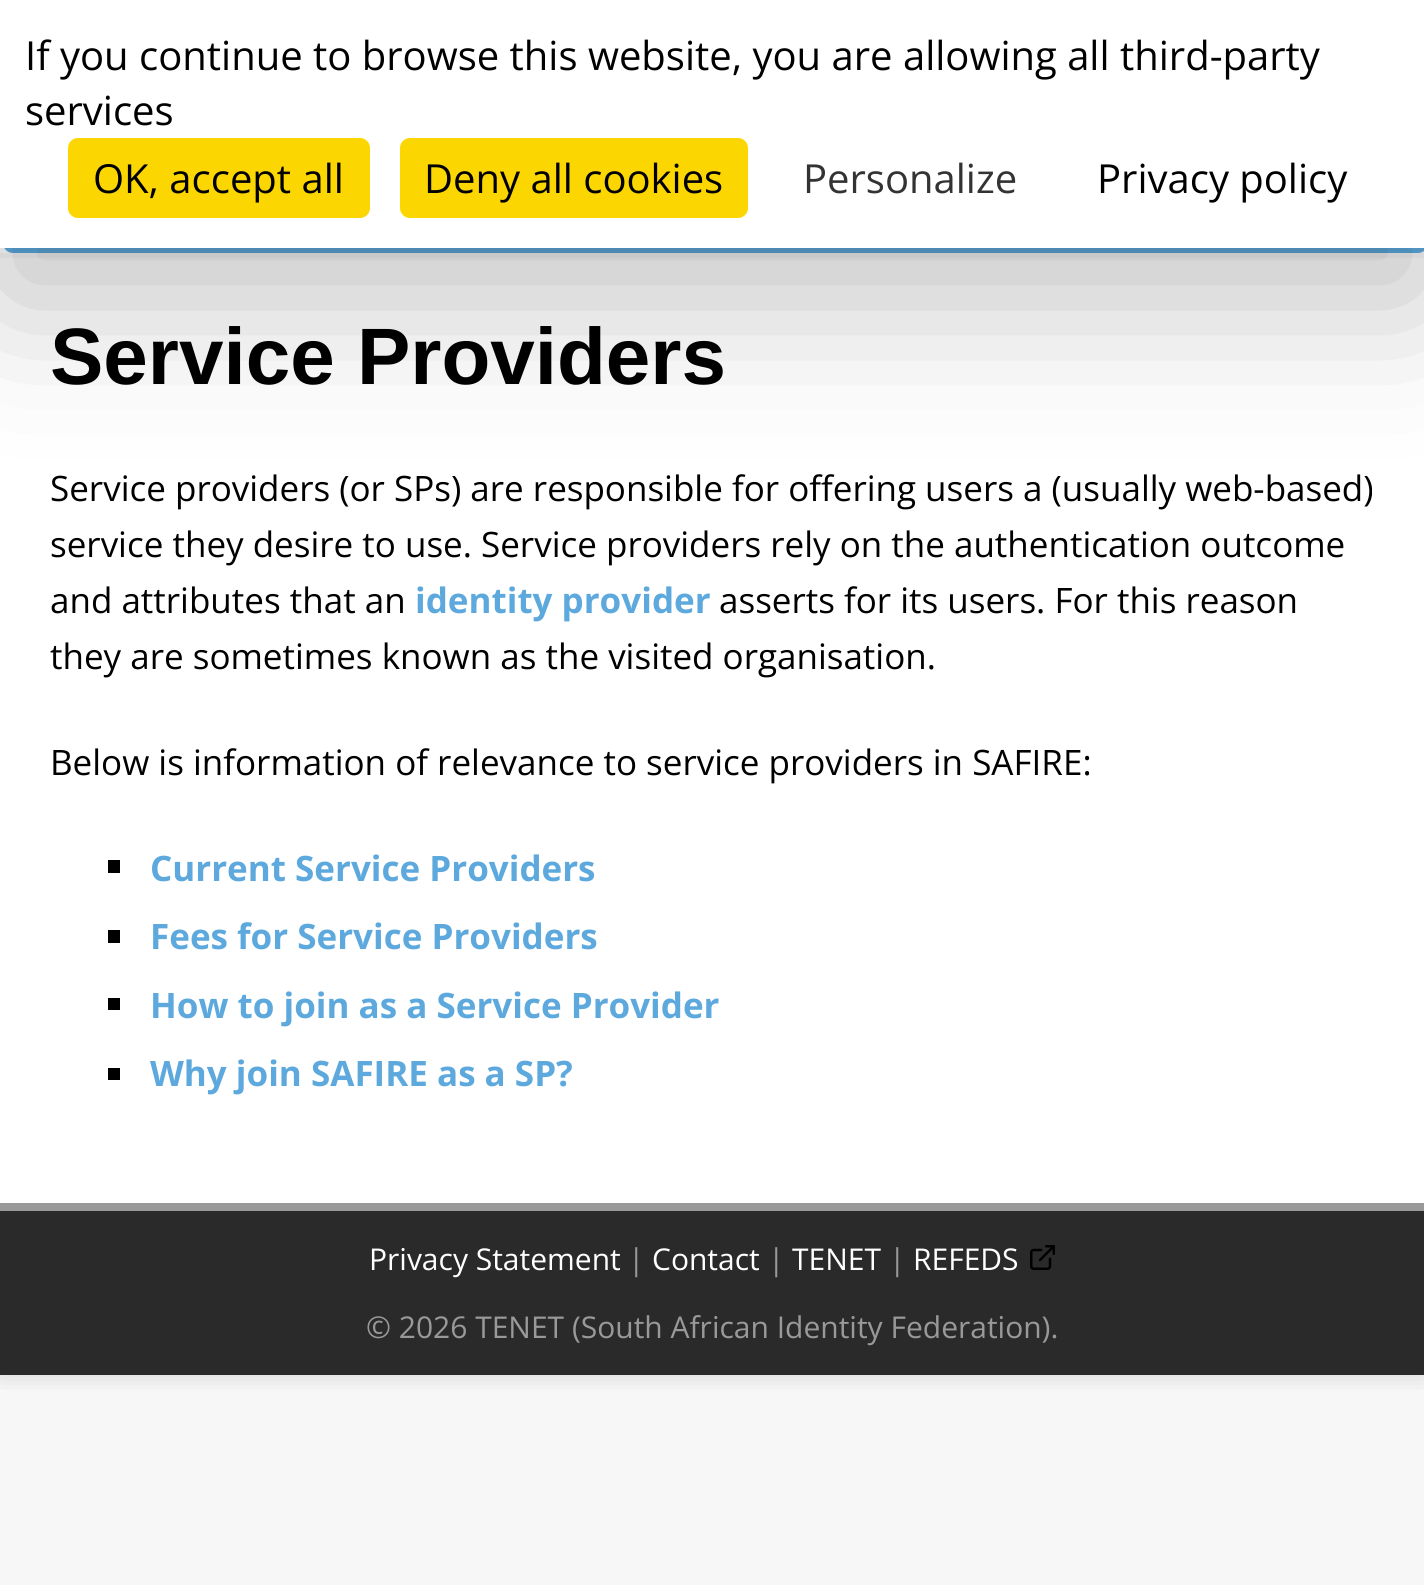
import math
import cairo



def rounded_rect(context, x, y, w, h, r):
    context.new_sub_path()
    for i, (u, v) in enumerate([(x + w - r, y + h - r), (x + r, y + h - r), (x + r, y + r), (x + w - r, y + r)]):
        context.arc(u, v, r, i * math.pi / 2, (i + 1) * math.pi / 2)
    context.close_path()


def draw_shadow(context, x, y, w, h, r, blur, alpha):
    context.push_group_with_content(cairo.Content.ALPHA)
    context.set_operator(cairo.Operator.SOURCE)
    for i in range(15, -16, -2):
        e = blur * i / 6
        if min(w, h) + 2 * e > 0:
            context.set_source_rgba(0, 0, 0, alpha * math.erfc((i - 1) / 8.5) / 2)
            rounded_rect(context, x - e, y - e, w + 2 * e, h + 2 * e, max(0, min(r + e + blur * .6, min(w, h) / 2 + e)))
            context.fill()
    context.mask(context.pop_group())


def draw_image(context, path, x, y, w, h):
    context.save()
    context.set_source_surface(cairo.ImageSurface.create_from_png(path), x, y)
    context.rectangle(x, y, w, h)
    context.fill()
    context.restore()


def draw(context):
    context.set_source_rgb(247 / 255, 247 / 255, 247 / 255)
    context.paint()
    context.save()
    context.rectangle(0, 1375, 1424, 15)
    context.clip()
    context.set_source_rgb(50 / 255, 50 / 255, 50 / 255)
    draw_shadow(context, 0, 0, 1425, 1375, 0, 12.5, 0.17)
    context.restore()
    context.set_source_rgb(1, 1, 1)
    context.rectangle(0, 248, 1424, 5)
    context.fill()
    context.set_source_rgb(93 / 255, 169 / 255, 221 / 255)
    rounded_rect(context, 3, 145, 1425, 108, 10)
    context.fill()
    context.set_source_rgb(1, 1, 1)
    context.rectangle(0, 258, 1424, 945)
    context.fill()
    context.set_source_rgb(0, 0, 0)
    draw_shadow(context, 0, 50, 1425, 248, 0, 75, 0.25)
    context.set_source_rgb(1, 1, 1)
    context.rectangle(0, 0, 1424, 248)
    context.fill()
    context.set_source_rgb(251 / 255, 214 / 255, 0)
    rounded_rect(context, 68, 138, 302, 80, 10)
    context.fill()
    rounded_rect(context, 400, 138, 348, 80, 10)
    context.fill()
    context.set_source_rgb(0, 0, 0)
    context.rectangle(108, 860, 12, 13)
    context.fill()
    context.rectangle(108, 930, 12, 13)
    context.fill()
    context.rectangle(108, 998, 12, 12)
    context.fill()
    context.rectangle(108, 1068, 12, 12)
    context.fill()
    context.set_source_rgb(42 / 255, 42 / 255, 42 / 255)
    context.rectangle(0, 1211, 1424, 164)
    context.fill()
    context.set_source_rgb(153 / 255, 153 / 255, 153 / 255)
    context.rectangle(0, 1203, 1424, 8)
    context.fill()
    draw_image(context, "images/1.png", 1030, 1245, 25, 25)
    context.select_font_face("Open Sans")
    context.set_font_size(40)
    context.set_source_rgb(0, 0, 0)
    context.move_to(25, 70)
    context.show_text("If you continue to browse this website, you are allowing all third-party")
    context.move_to(25, 125)
    context.show_text("services")
    context.move_to(93, 193)
    context.show_text("OK, accept all")
    context.move_to(424, 193)
    context.show_text("Deny all cookies")
    context.set_source_rgb(51 / 255, 51 / 255, 51 / 255)
    context.move_to(803, 193)
    context.show_text("Personalize")
    context.set_source_rgb(0, 0, 0)
    context.move_to(1097, 193)
    context.show_text("Privacy policy")
    context.select_font_face("Liberation Sans", cairo.FontSlant.NORMAL, cairo.FontWeight.BOLD)
    context.set_font_size(80)
    context.move_to(50, 384)
    context.show_text("Service Providers")
    context.select_font_face("Open Sans")
    context.set_font_size(35)
    context.move_to(50, 501)
    context.show_text("Service providers (or SPs) are responsible for offering users a (usually web-based)")
    context.move_to(50, 557)
    context.show_text("service they desire to use. Service providers rely on the authentication outcome")
    context.move_to(50, 613)
    context.show_text("and attributes that an")
    context.select_font_face("Open Sans", cairo.FontSlant.NORMAL, cairo.FontWeight.BOLD)
    context.set_source_rgb(93 / 255, 169 / 255, 221 / 255)
    context.move_to(415, 613)
    context.show_text("identity provider")
    context.select_font_face("Open Sans")
    context.set_source_rgb(0, 0, 0)
    context.move_to(719, 613)
    context.show_text("asserts for its users. For this reason")
    context.move_to(50, 669)
    context.show_text("they are sometimes known as the visited organisation.")
    context.move_to(50, 775)
    context.show_text("Below is information of relevance to service providers in SAFIRE:")
    context.select_font_face("Open Sans", cairo.FontSlant.NORMAL, cairo.FontWeight.BOLD)
    context.set_source_rgb(93 / 255, 169 / 255, 221 / 255)
    context.move_to(150, 881)
    context.show_text("Current Service Providers")
    context.move_to(150, 949)
    context.show_text("Fees for Service Providers")
    context.move_to(150, 1018)
    context.show_text("How to join as a Service Provider")
    context.move_to(150, 1086)
    context.show_text("Why join SAFIRE as a SP?")
    context.select_font_face("Open Sans")
    context.set_font_size(30)
    context.set_source_rgb(1, 1, 1)
    context.move_to(369, 1270)
    context.show_text("Privacy Statement")
    context.set_source_rgb(153 / 255, 153 / 255, 153 / 255)
    context.move_to(628, 1270)
    context.show_text("|")
    context.set_source_rgb(1, 1, 1)
    context.move_to(652, 1270)
    context.show_text("Contact")
    context.set_source_rgb(153 / 255, 153 / 255, 153 / 255)
    context.move_to(768, 1270)
    context.show_text("|")
    context.set_source_rgb(1, 1, 1)
    context.move_to(792, 1270)
    context.show_text("TENET")
    context.set_source_rgb(153 / 255, 153 / 255, 153 / 255)
    context.move_to(889, 1270)
    context.show_text("|")
    context.set_source_rgb(1, 1, 1)
    context.move_to(913, 1270)
    context.show_text("REFEDS")
    context.set_source_rgb(153 / 255, 153 / 255, 153 / 255)
    context.move_to(366, 1338)
    context.show_text("© 2026 TENET (South African Identity Federation).")


surface = cairo.ImageSurface(cairo.Format.RGB24, 1424, 1585)
context = cairo.Context(surface)
options = cairo.FontOptions()
options.set_hint_metrics(cairo.HintMetrics.OFF)
options.set_hint_style(cairo.HintStyle.NONE)
context.set_font_options(options)
context.set_miter_limit(4)
draw(context)
surface.write_to_png("out.png")
